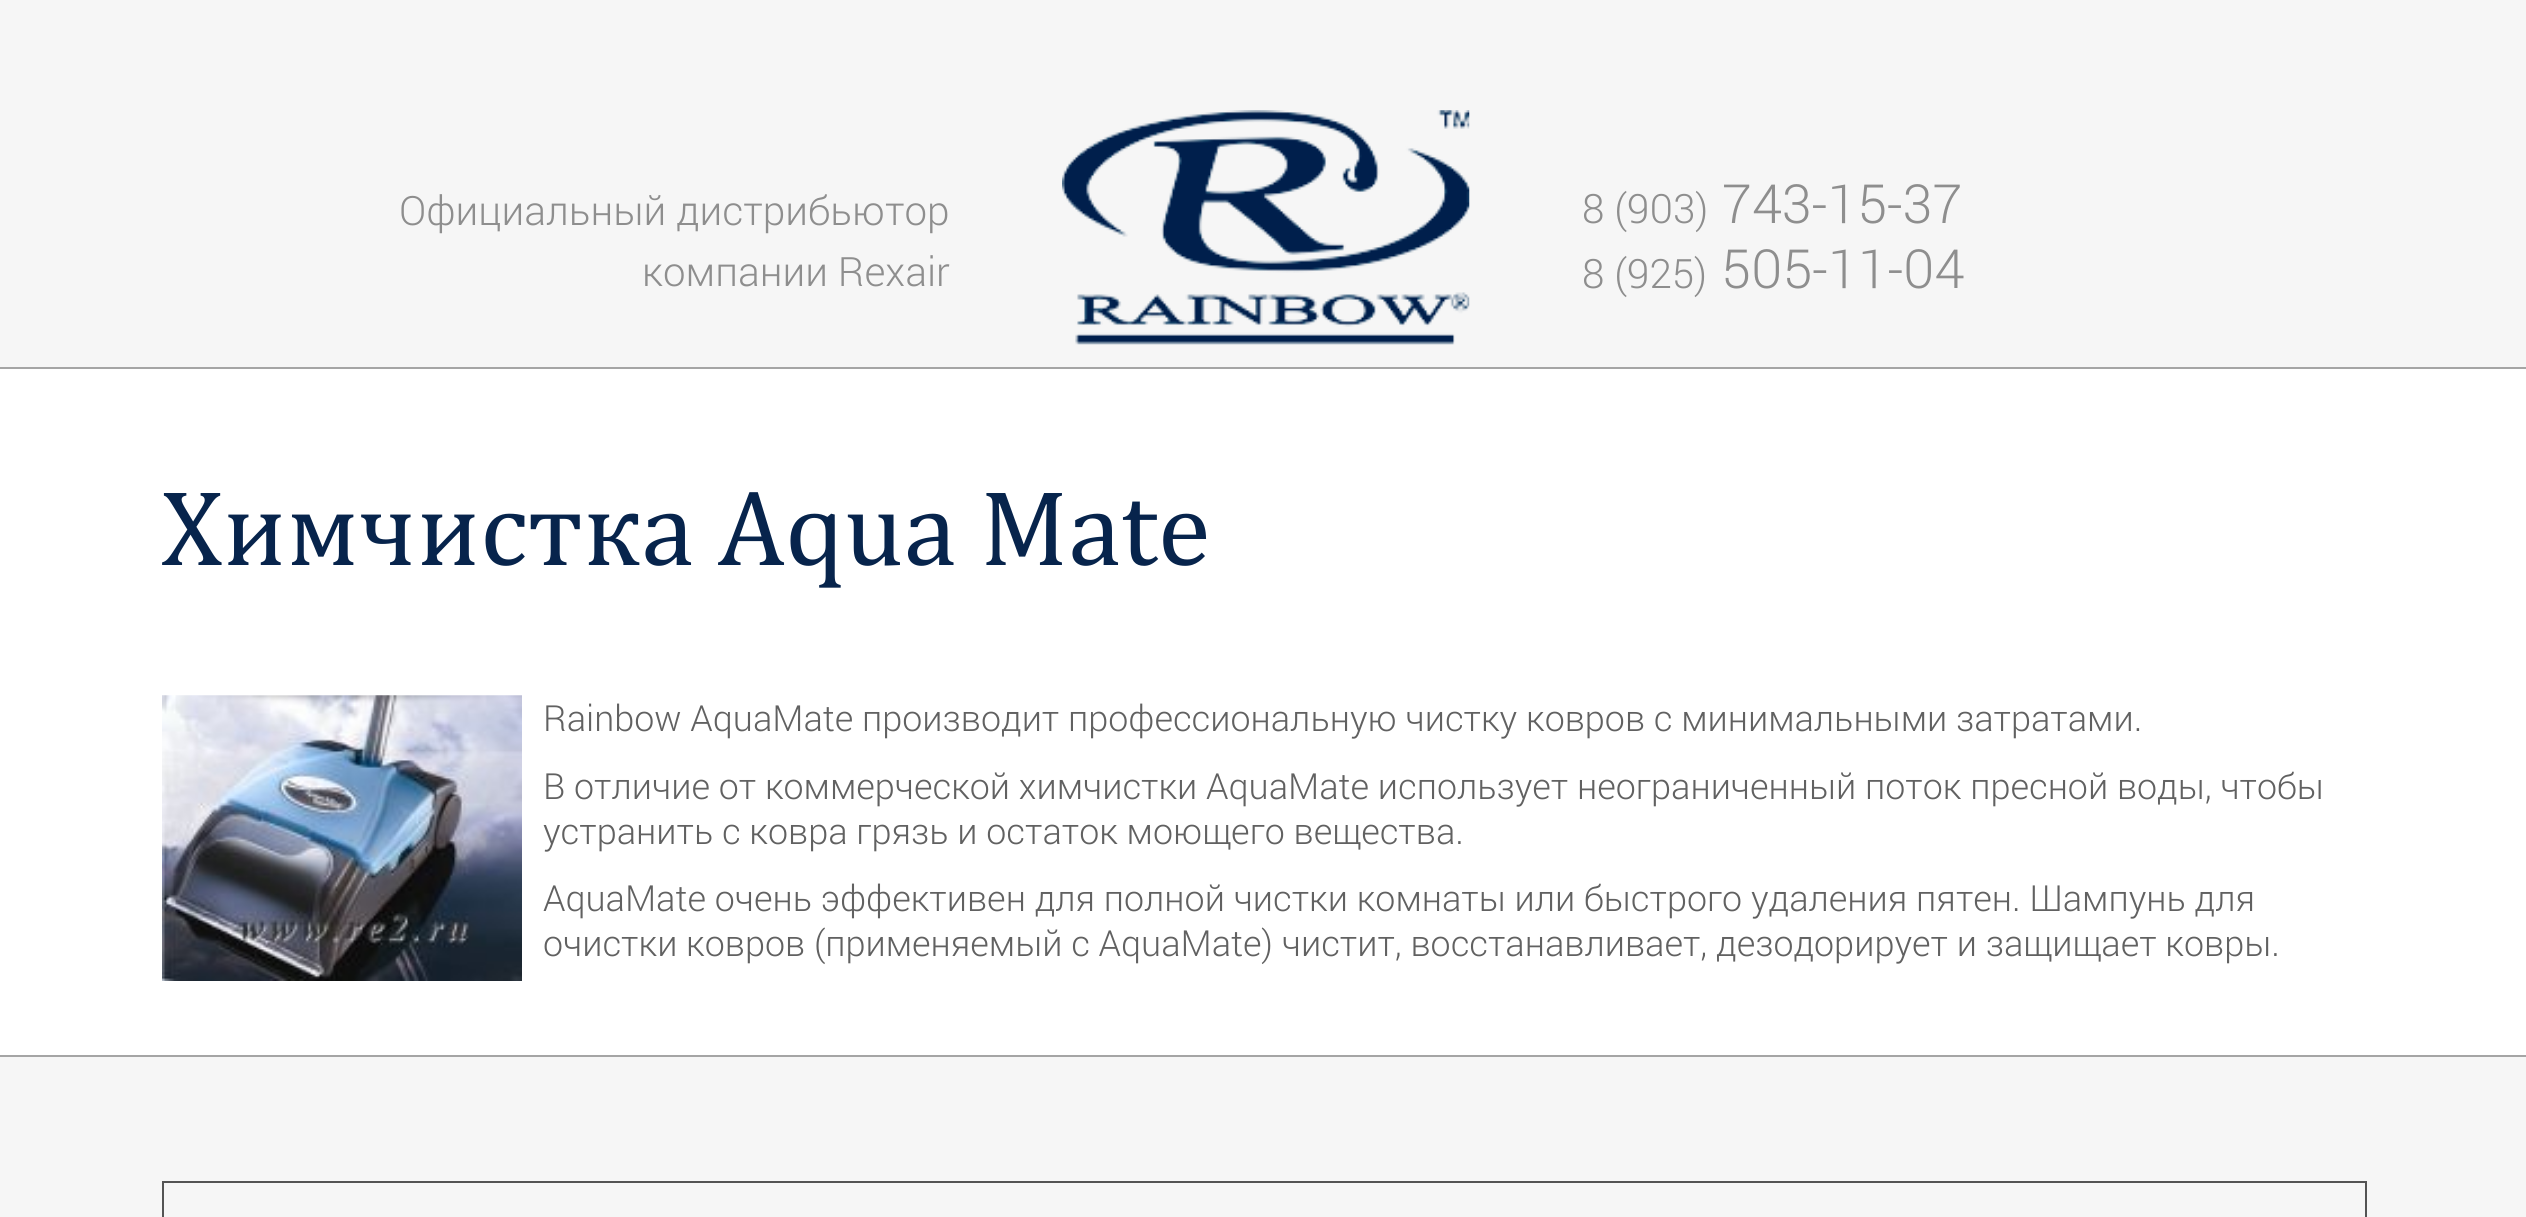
import math
import cairo



def draw_image(context, path, x, y, w, h):
    context.save()
    context.set_source_surface(cairo.ImageSurface.create_from_png(path), x, y)
    context.rectangle(x, y, w, h)
    context.fill()
    context.restore()


def draw(context):
    context.set_source_rgb(1, 1, 1)
    context.paint()
    context.set_source_rgb(246 / 255, 246 / 255, 246 / 255)
    context.rectangle(0, 0, 2526, 367)
    context.fill()
    context.set_source_rgb(165 / 255, 165 / 255, 165 / 255)
    context.rectangle(0, 367, 2526, 2)
    context.fill()
    draw_image(context, "images/1.png", 1062, 110, 408, 235)
    draw_image(context, "images/2.png", 162, 695, 360, 286)
    context.set_source_rgb(246 / 255, 246 / 255, 246 / 255)
    context.rectangle(0, 1057, 2526, 160)
    context.fill()
    context.set_source_rgb(165 / 255, 165 / 255, 165 / 255)
    context.rectangle(0, 1055, 2526, 2)
    context.fill()
    context.rectangle(163, 1182, 2203, 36)
    context.set_source_rgb(84 / 255, 84 / 255, 84 / 255)
    context.stroke()
    context.select_font_face("Roboto Light")
    context.set_font_size(40.5)
    context.set_source_rgb(142 / 255, 142 / 255, 142 / 255)
    context.move_to(399, 225)
    context.show_text("Официальный дистрибьютор")
    context.move_to(642, 286)
    context.show_text("компании Rexair")
    context.move_to(1582, 223)
    context.show_text("8 (903)")
    context.set_font_size(54)
    context.move_to(1722, 223)
    context.show_text("743-15-37")
    context.set_font_size(40.5)
    context.move_to(1582, 288)
    context.show_text("8 (925)")
    context.set_font_size(54)
    context.move_to(1721, 288)
    context.show_text("505-11-04")
    context.select_font_face("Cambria")
    context.set_font_size(108)
    context.set_source_rgb(7 / 255, 36 / 255, 76 / 255)
    context.move_to(161, 565)
    context.show_text("Химчистка Aqua Mate")
    context.select_font_face("Roboto Light")
    context.set_font_size(36)
    context.set_source_rgb(97 / 255, 97 / 255, 97 / 255)
    context.move_to(543, 731)
    context.show_text("Rainbow AquaMate производит профессиональную чистку ковров с минимальными затратами.")
    context.move_to(543, 799)
    context.show_text("В отличие от коммерческой химчистки AquaMate использует неограниченный поток пресной воды, чтобы")
    context.move_to(543, 844)
    context.show_text("устранить с ковра грязь и остаток моющего вещества.")
    context.move_to(543, 911)
    context.show_text("AquaMate очень эффективен для полной чистки комнаты или быстрого удаления пятен. Шампунь для")
    context.move_to(543, 956)
    context.show_text("очистки ковров (применяемый с AquaMate) чистит, восстанавливает, дезодорирует и защищает ковры.")


surface = cairo.ImageSurface(cairo.Format.RGB24, 2526, 1217)
context = cairo.Context(surface)
options = cairo.FontOptions()
options.set_hint_metrics(cairo.HintMetrics.OFF)
options.set_hint_style(cairo.HintStyle.NONE)
context.set_font_options(options)
context.set_miter_limit(4)
draw(context)
surface.write_to_png("out.png")
